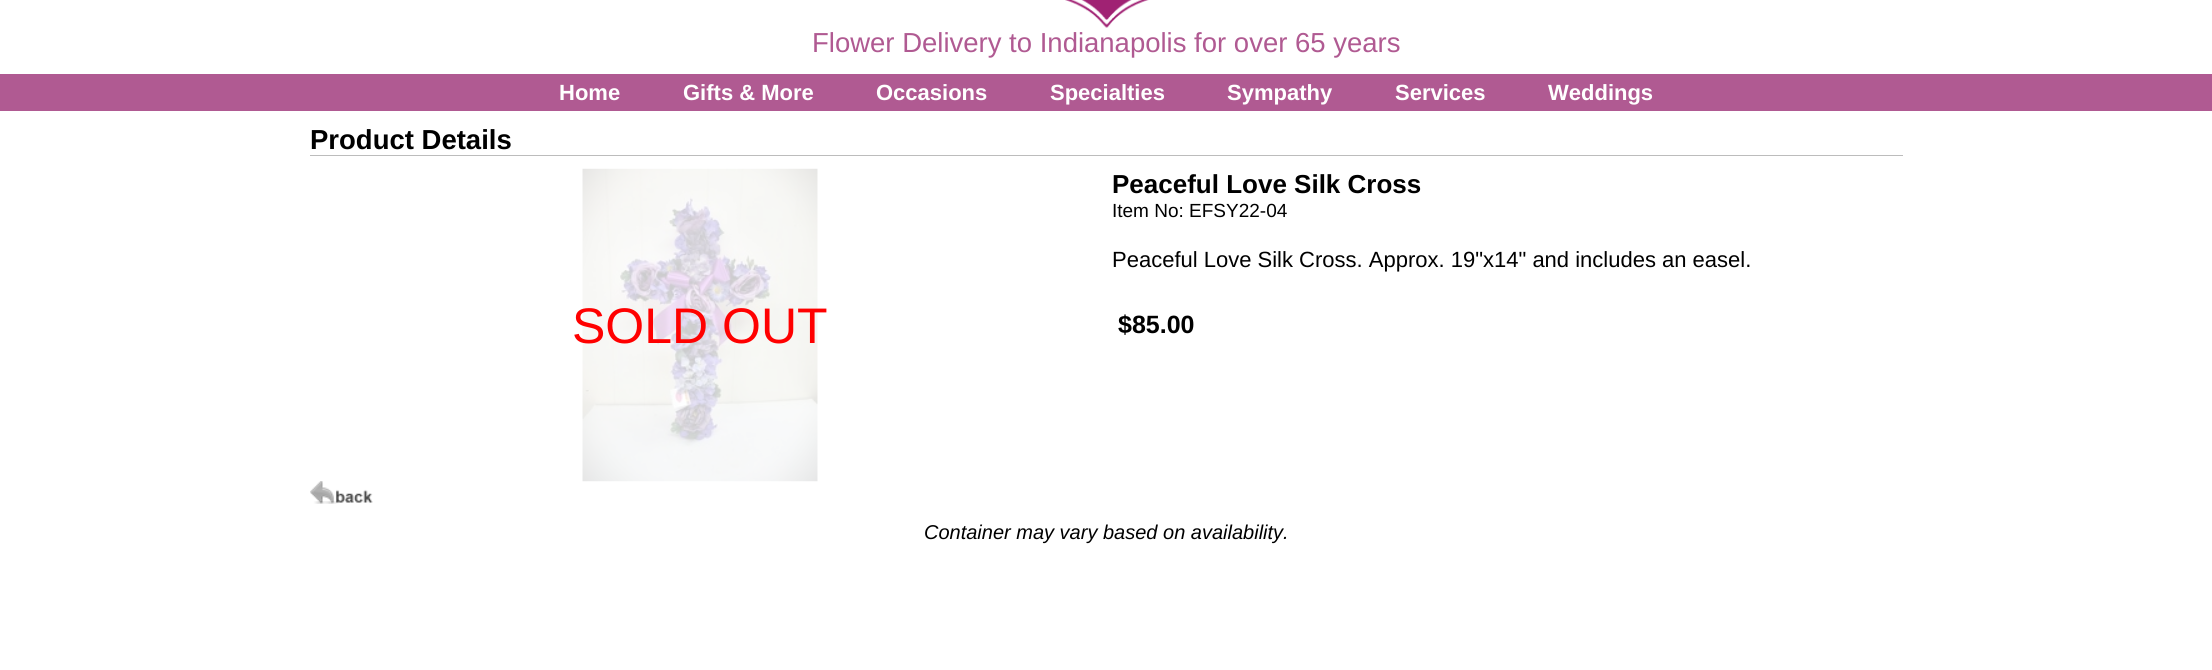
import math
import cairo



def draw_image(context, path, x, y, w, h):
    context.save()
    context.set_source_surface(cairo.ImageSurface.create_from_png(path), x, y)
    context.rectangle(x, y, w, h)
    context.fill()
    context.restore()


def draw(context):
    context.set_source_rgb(1, 1, 1)
    context.paint()
    draw_image(context, "images/1.png", 1065, 0, 84, 28)
    context.set_source_rgb(176 / 255, 90 / 255, 146 / 255)
    context.rectangle(0, 74, 2212, 37)
    context.fill()
    context.set_source_rgb(188 / 255, 188 / 255, 188 / 255)
    context.rectangle(310, 155, 1593, 1)
    context.fill()
    draw_image(context, "images/2.png", 582, 168, 236, 314)
    draw_image(context, "images/3.png", 310, 481, 63, 23)
    context.select_font_face("Liberation Sans")
    context.set_font_size(27.5)
    context.set_source_rgb(176 / 255, 90 / 255, 146 / 255)
    context.move_to(812, 52)
    context.show_text("Flower Delivery to Indianapolis for over 65 years")
    context.select_font_face("Liberation Sans", cairo.FontSlant.NORMAL, cairo.FontWeight.BOLD)
    context.set_font_size(22)
    context.set_source_rgb(1, 1, 1)
    context.move_to(559, 100)
    context.show_text("Home")
    context.move_to(683, 100)
    context.show_text("Gifts & More")
    context.move_to(876, 100)
    context.show_text("Occasions")
    context.move_to(1050, 100)
    context.show_text("Specialties")
    context.move_to(1227, 100)
    context.show_text("Sympathy")
    context.move_to(1395, 100)
    context.show_text("Services")
    context.move_to(1548, 100)
    context.show_text("Weddings")
    context.set_font_size(27.5)
    context.set_source_rgb(0, 0, 0)
    context.move_to(310, 149)
    context.show_text("Product Details")
    context.select_font_face("Liberation Sans")
    context.set_font_size(50)
    context.set_source_rgb(1, 0, 0)
    context.move_to(572, 343)
    context.show_text("SOLD OUT")
    context.select_font_face("Liberation Sans", cairo.FontSlant.NORMAL, cairo.FontWeight.BOLD)
    context.set_font_size(26)
    context.set_source_rgb(0, 0, 0)
    context.move_to(1112, 193)
    context.show_text("Peaceful Love Silk Cross")
    context.select_font_face("Liberation Sans")
    context.set_font_size(19)
    context.move_to(1112, 217)
    context.show_text("Item No: EFSY22-04")
    context.set_font_size(22)
    context.move_to(1112, 267)
    context.show_text("Peaceful Love Silk Cross. Approx. 19\"x14\" and includes an easel.")
    context.select_font_face("Liberation Sans", cairo.FontSlant.NORMAL, cairo.FontWeight.BOLD)
    context.set_font_size(25)
    context.move_to(1118, 333)
    context.show_text("$85.00")
    context.select_font_face("Liberation Sans", cairo.FontSlant.ITALIC)
    context.set_font_size(20)
    context.move_to(924, 539)
    context.show_text("Container may vary based on availability.")


surface = cairo.ImageSurface(cairo.Format.RGB24, 2212, 670)
context = cairo.Context(surface)
options = cairo.FontOptions()
options.set_hint_metrics(cairo.HintMetrics.OFF)
options.set_hint_style(cairo.HintStyle.NONE)
context.set_font_options(options)
context.set_miter_limit(4)
draw(context)
surface.write_to_png("out.png")
